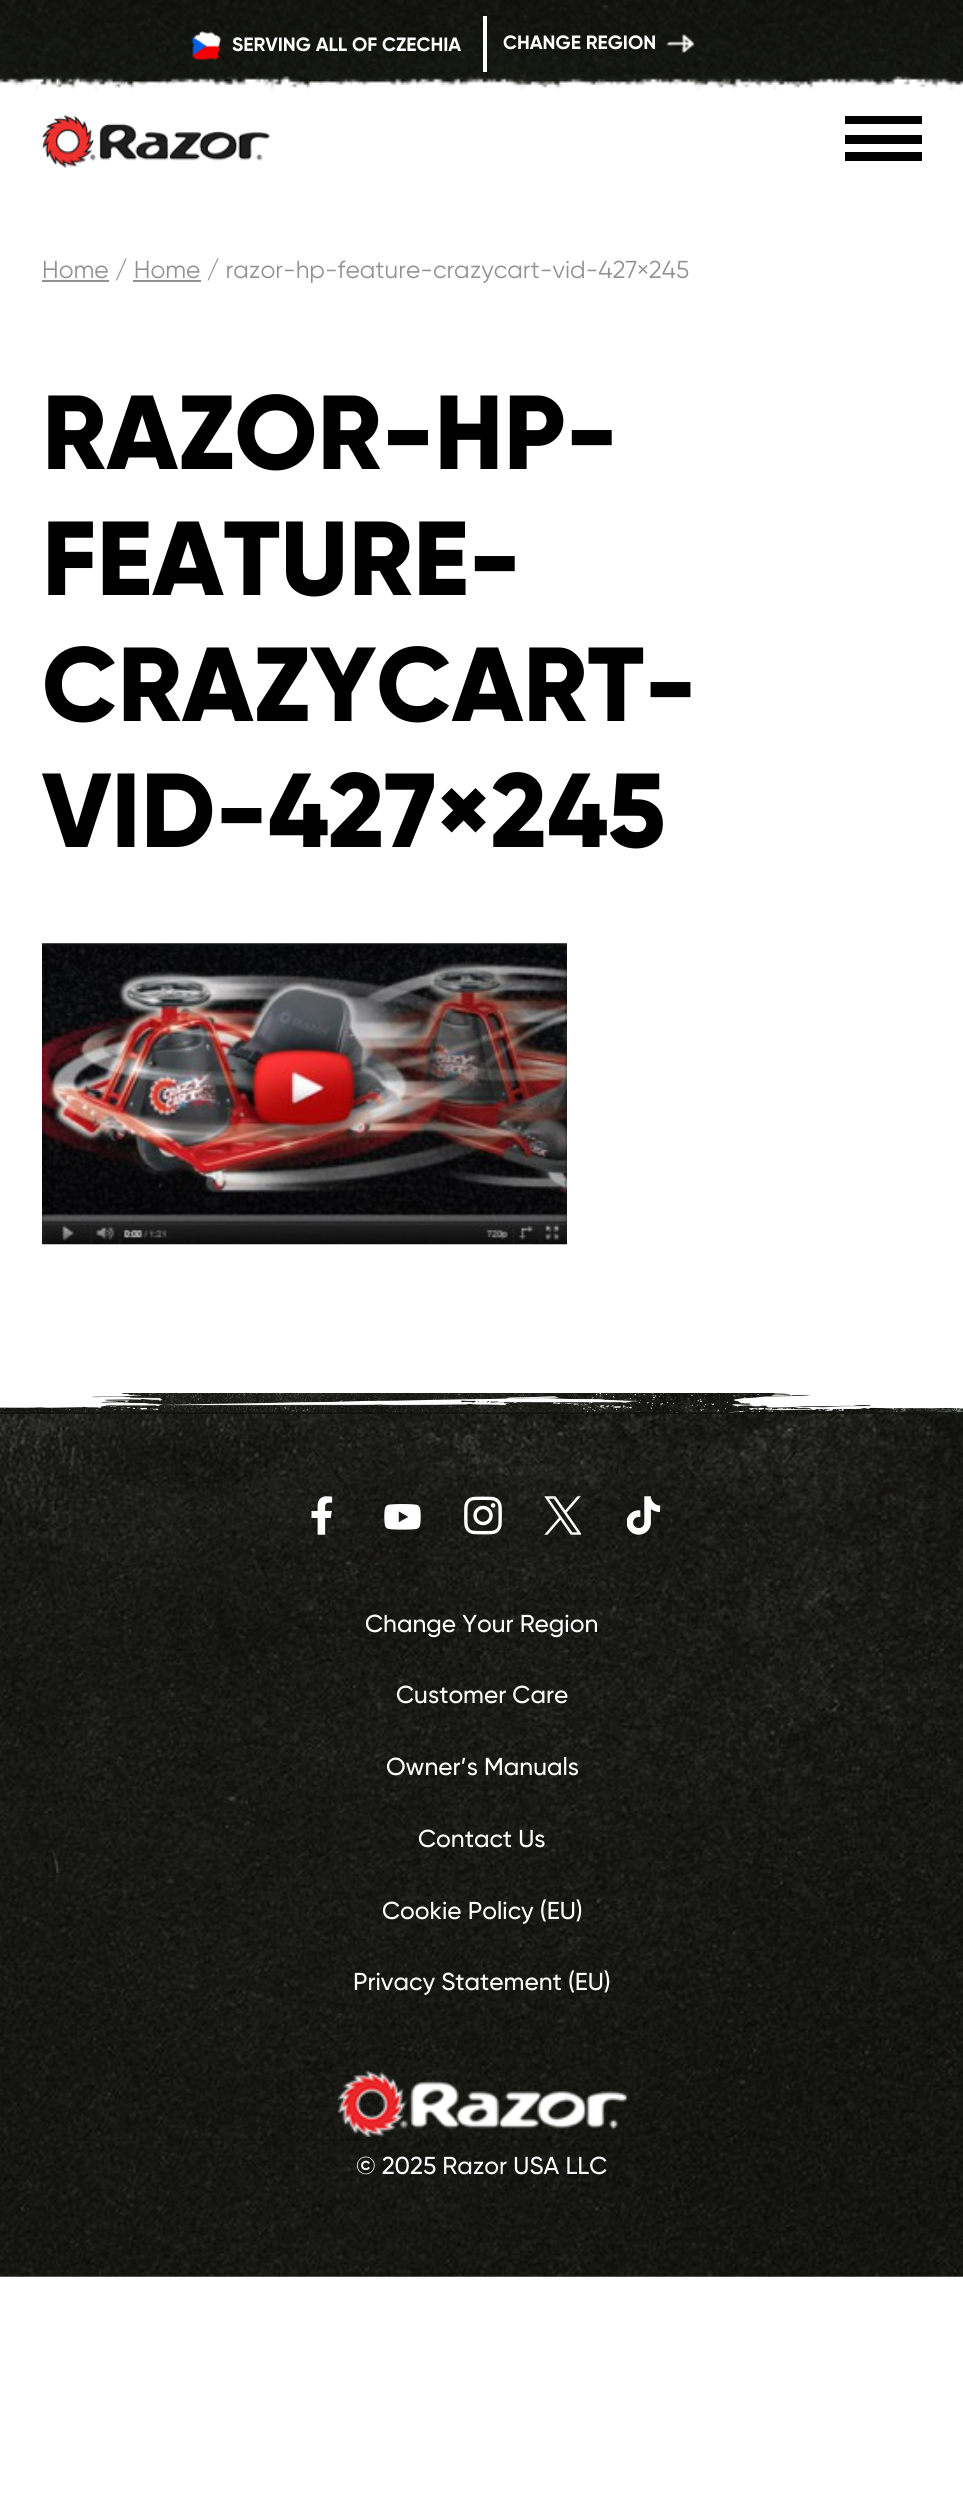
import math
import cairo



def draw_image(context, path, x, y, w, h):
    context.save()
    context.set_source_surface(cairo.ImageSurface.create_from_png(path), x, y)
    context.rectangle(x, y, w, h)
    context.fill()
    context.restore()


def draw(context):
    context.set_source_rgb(1, 1, 1)
    context.paint()
    draw_image(context, "images/1.png", 0, 0, 963, 90)
    draw_image(context, "images/2.png", 191, 31, 30, 29)
    context.set_source_rgb(1, 1, 1)
    context.rectangle(483, 16, 4, 56)
    context.fill()
    draw_image(context, "images/3.png", 666, 34, 29, 19)
    draw_image(context, "images/4.png", 42, 115, 228, 53)
    context.set_source_rgb(0, 0, 0)
    context.rectangle(845, 116, 77, 8)
    context.fill()
    context.rectangle(845, 135, 77, 9)
    context.fill()
    context.rectangle(845, 152, 77, 9)
    context.fill()
    context.set_source_rgb(145 / 255, 145 / 255, 145 / 255)
    context.rectangle(42, 280, 67, 2)
    context.fill()
    context.rectangle(133, 280, 68, 2)
    context.fill()
    draw_image(context, "images/5.png", 42, 943, 525, 302)
    draw_image(context, "images/6.png", 0, 1412, 963, 865)
    draw_image(context, "images/7.png", 0, 1393, 963, 21)
    draw_image(context, "images/8.png", 311, 1496, 22, 39)
    draw_image(context, "images/9.png", 384, 1504, 37, 26)
    draw_image(context, "images/10.png", 464, 1496, 38, 39)
    draw_image(context, "images/11.png", 544, 1496, 37, 39)
    draw_image(context, "images/12.png", 627, 1496, 33, 39)
    draw_image(context, "images/13.png", 337, 2070, 290, 67)
    context.select_font_face("Gilroy", cairo.FontSlant.NORMAL, cairo.FontWeight.BOLD)
    context.set_font_size(19.25)
    context.set_source_rgb(1, 1, 1)
    context.move_to(232, 51)
    context.show_text("SERVING ALL OF CZECHIA")
    context.move_to(503, 49)
    context.show_text("CHANGE REGION")
    context.select_font_face("Gilroy")
    context.set_font_size(24.5)
    context.set_source_rgb(145 / 255, 145 / 255, 145 / 255)
    context.move_to(42, 278)
    context.show_text("Home / Home / razor-hp-feature-crazycart-vid-427×245")
    context.select_font_face("Gilroy ExtraBold")
    context.set_font_size(105)
    context.set_source_rgb(0, 0, 0)
    context.move_to(42, 469)
    context.show_text("RAZOR-HP-")
    context.move_to(42, 595)
    context.show_text("FEATURE-")
    context.move_to(42, 721)
    context.show_text("CRAZYCART-")
    context.move_to(42, 847)
    context.show_text("VID-427×245")
    context.select_font_face("Gilroy Medium")
    context.set_font_size(24.5)
    context.set_source_rgb(1, 1, 1)
    context.move_to(365, 1632)
    context.show_text("Change Your Region")
    context.move_to(396, 1703)
    context.show_text("Customer Care")
    context.move_to(386, 1775)
    context.show_text("Owner’s Manuals")
    context.move_to(418, 1847)
    context.show_text("Contact Us")
    context.move_to(382, 1919)
    context.show_text("Cookie Policy (EU)")
    context.move_to(353, 1990)
    context.show_text("Privacy Statement (EU)")
    context.set_source_rgb(248 / 255, 249 / 255, 250 / 255)
    context.move_to(356, 2174)
    context.show_text("© 2025 Razor USA LLC")


surface = cairo.ImageSurface(cairo.Format.RGB24, 963, 2502)
context = cairo.Context(surface)
options = cairo.FontOptions()
options.set_hint_metrics(cairo.HintMetrics.OFF)
options.set_hint_style(cairo.HintStyle.NONE)
context.set_font_options(options)
context.set_miter_limit(4)
draw(context)
surface.write_to_png("out.png")
